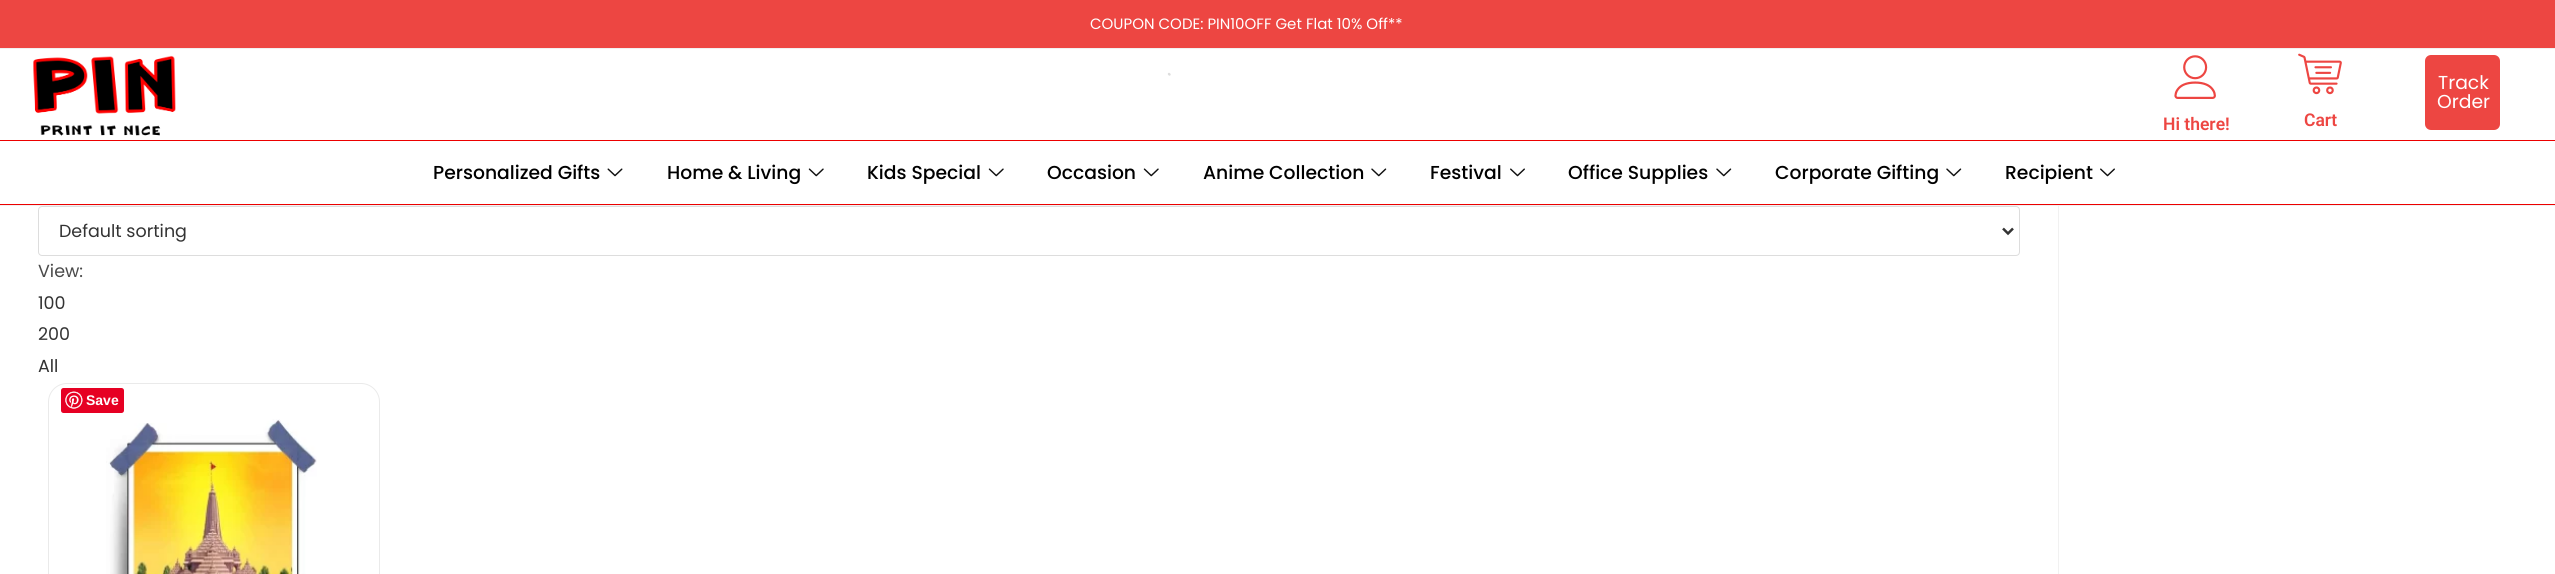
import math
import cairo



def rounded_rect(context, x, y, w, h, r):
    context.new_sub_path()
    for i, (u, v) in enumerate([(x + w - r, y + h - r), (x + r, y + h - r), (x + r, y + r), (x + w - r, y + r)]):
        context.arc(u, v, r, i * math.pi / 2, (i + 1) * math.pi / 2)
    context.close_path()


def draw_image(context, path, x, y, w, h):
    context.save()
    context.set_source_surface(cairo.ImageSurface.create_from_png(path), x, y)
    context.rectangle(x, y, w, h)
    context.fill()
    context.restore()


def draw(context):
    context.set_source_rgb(1, 1, 1)
    context.paint()
    context.set_source_rgb(237 / 255, 70 / 255, 66 / 255)
    context.rectangle(0, 0, 2555, 48)
    context.fill()
    context.set_source_rgb(241 / 255, 241 / 255, 241 / 255)
    context.rectangle(0, 48, 2555, 1)
    context.fill()
    context.rectangle(0, 205, 2555, 1)
    context.fill()
    draw_image(context, "images/1.png", 33, 55, 143, 81)
    context.new_path()
    context.move_to(1169, 74)
    context.line_to(1169.5, 74.5)
    context.set_source_rgb(221 / 255, 221 / 255, 221 / 255)
    context.set_line_width(2.4)
    context.set_line_cap(cairo.LineCap.ROUND)
    context.stroke()
    context.set_source_rgb(237 / 255, 70 / 255, 66 / 255)
    rounded_rect(context, 2425, 55, 75, 75, 6)
    context.fill()
    draw_image(context, "images/2.png", 2174, 55, 42, 44)
    draw_image(context, "images/3.png", 2298, 53, 44, 42)
    context.set_source_rgb(236 / 255, 0, 0)
    context.rectangle(0, 140, 2555, 1)
    context.fill()
    context.rectangle(0, 204, 2555, 1)
    context.fill()
    draw_image(context, "images/4.png", 607, 168, 16, 9)
    draw_image(context, "images/5.png", 808, 168, 16, 9)
    draw_image(context, "images/5.png", 988, 168, 16, 9)
    draw_image(context, "images/5.png", 1143, 168, 16, 9)
    draw_image(context, "images/6.png", 1371, 168, 16, 9)
    draw_image(context, "images/7.png", 1510, 168, 15, 9)
    draw_image(context, "images/6.png", 1716, 168, 16, 9)
    draw_image(context, "images/6.png", 1946, 168, 16, 9)
    draw_image(context, "images/7.png", 2100, 168, 15, 9)
    context.set_source_rgb(241 / 255, 241 / 255, 241 / 255)
    context.rectangle(2058, 206, 1, 368)
    context.fill()
    rounded_rect(context, 38.5, 206.5, 1981, 49, 3.5)
    context.set_source_rgb(221 / 255, 221 / 255, 221 / 255)
    context.set_line_width(1)
    context.set_line_cap(cairo.LineCap.BUTT)
    context.stroke()
    context.new_path()
    context.move_to(2003, 228.5)
    context.line_to(2008, 233.5)
    context.line_to(2013, 228.5)
    context.set_source_rgb(51 / 255, 51 / 255, 51 / 255)
    context.set_line_width(2.5)
    context.stroke()
    rounded_rect(context, 48.5, 383.5, 331, 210, 18.5)
    context.set_source_rgb(234 / 255, 234 / 255, 234 / 255)
    context.set_line_width(1)
    context.stroke()
    context.set_source_rgb(230 / 255, 0, 35 / 255)
    rounded_rect(context, 61, 388, 63, 25, 2.5)
    context.fill()
    draw_image(context, "images/8.png", 65, 391, 18, 18)
    draw_image(context, "images/9.png", 106, 419, 211, 155)
    context.select_font_face("Poppins")
    context.set_font_size(15)
    context.set_source_rgb(1, 1, 1)
    context.move_to(1090, 29)
    context.show_text("COUPON CODE: PIN10OFF Get Flat 10% Off**")
    context.set_font_size(18.75)
    context.move_to(2438, 89)
    context.show_text("Track")
    context.move_to(2437, 108)
    context.show_text("Order")
    context.select_font_face("Roboto SemiBold")
    context.set_font_size(17.5)
    context.set_source_rgb(237 / 255, 70 / 255, 66 / 255)
    context.move_to(2163, 130)
    context.show_text("Hi there!")
    context.move_to(2304, 126)
    context.show_text("Cart")
    context.select_font_face("Poppins Medium")
    context.set_font_size(18.75)
    context.set_source_rgb(0, 0, 0)
    context.move_to(433, 179)
    context.show_text("Personalized Gifts")
    context.move_to(667, 179)
    context.show_text("Home & Living")
    context.move_to(867, 179)
    context.show_text("Kids Special")
    context.move_to(1047, 179)
    context.show_text("Occasion")
    context.move_to(1203, 179)
    context.show_text("Anime Collection")
    context.move_to(1430, 179)
    context.show_text("Festival")
    context.move_to(1568, 179)
    context.show_text("Office Supplies")
    context.move_to(1775, 179)
    context.show_text("Corporate Gifting")
    context.move_to(2005, 179)
    context.show_text("Recipient")
    context.select_font_face("Poppins")
    context.set_font_size(17.5)
    context.set_source_rgb(51 / 255, 51 / 255, 51 / 255)
    context.move_to(59, 237)
    context.show_text("Default sorting")
    context.set_source_rgb(74 / 255, 74 / 255, 74 / 255)
    context.move_to(38, 277)
    context.show_text("View:")
    context.set_source_rgb(51 / 255, 51 / 255, 51 / 255)
    context.move_to(38, 309)
    context.show_text("100")
    context.move_to(38, 340)
    context.show_text("200")
    context.move_to(38, 372)
    context.show_text("All")
    context.select_font_face("Liberation Sans", cairo.FontSlant.NORMAL, cairo.FontWeight.BOLD)
    context.set_font_size(14)
    context.set_source_rgb(1, 1, 1)
    context.move_to(86, 405)
    context.show_text("Save")


surface = cairo.ImageSurface(cairo.Format.RGB24, 2555, 574)
context = cairo.Context(surface)
options = cairo.FontOptions()
options.set_hint_metrics(cairo.HintMetrics.OFF)
options.set_hint_style(cairo.HintStyle.NONE)
context.set_font_options(options)
context.set_miter_limit(4)
draw(context)
surface.write_to_png("out.png")
